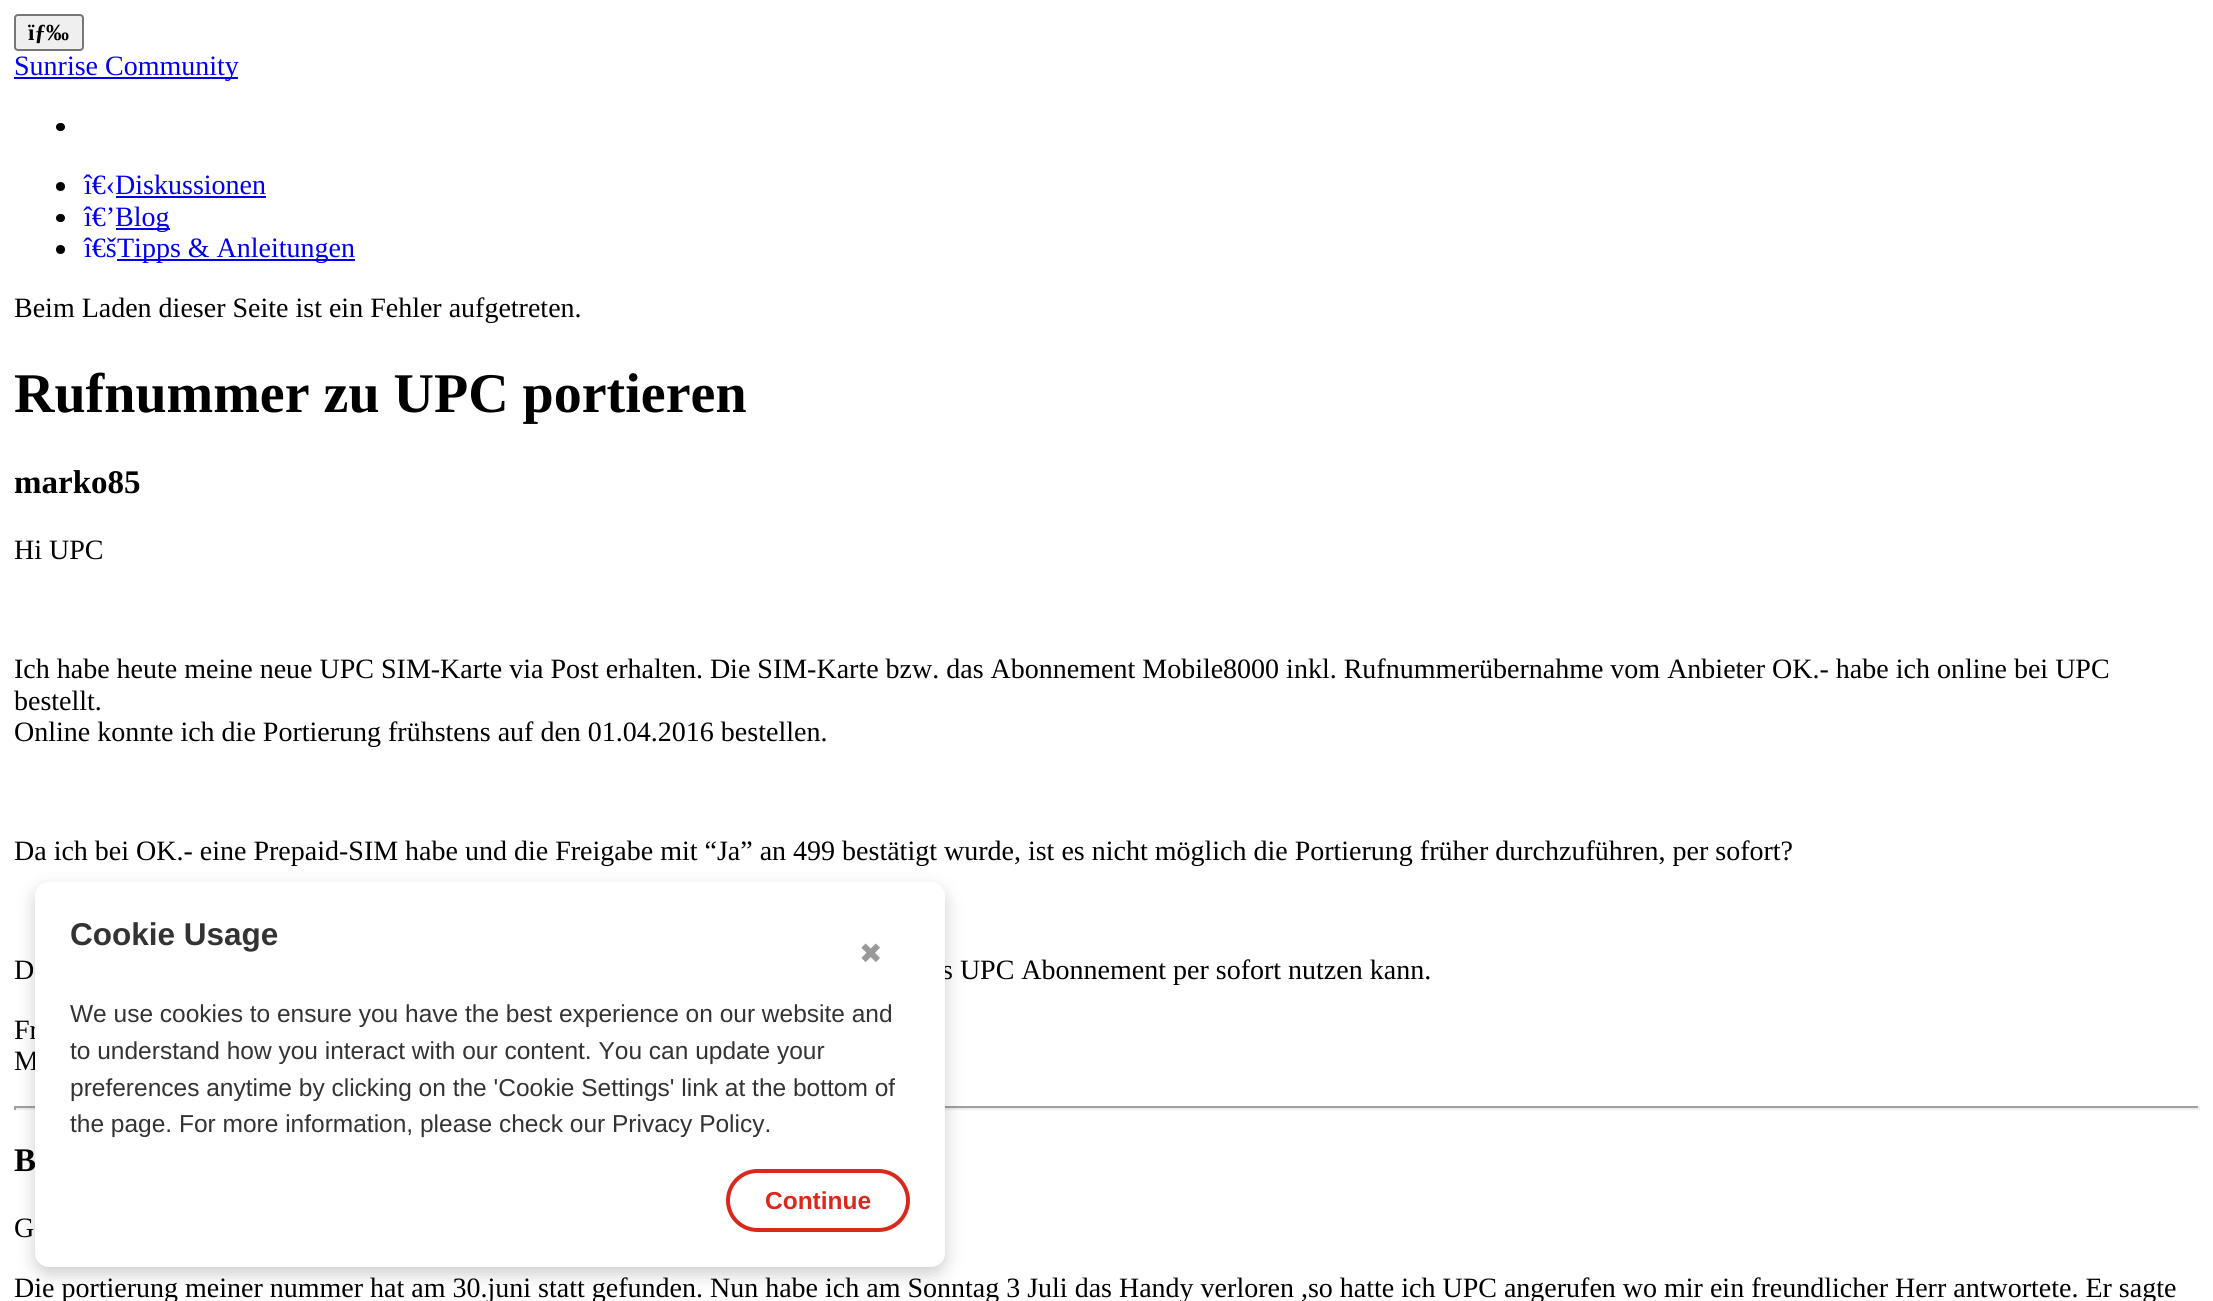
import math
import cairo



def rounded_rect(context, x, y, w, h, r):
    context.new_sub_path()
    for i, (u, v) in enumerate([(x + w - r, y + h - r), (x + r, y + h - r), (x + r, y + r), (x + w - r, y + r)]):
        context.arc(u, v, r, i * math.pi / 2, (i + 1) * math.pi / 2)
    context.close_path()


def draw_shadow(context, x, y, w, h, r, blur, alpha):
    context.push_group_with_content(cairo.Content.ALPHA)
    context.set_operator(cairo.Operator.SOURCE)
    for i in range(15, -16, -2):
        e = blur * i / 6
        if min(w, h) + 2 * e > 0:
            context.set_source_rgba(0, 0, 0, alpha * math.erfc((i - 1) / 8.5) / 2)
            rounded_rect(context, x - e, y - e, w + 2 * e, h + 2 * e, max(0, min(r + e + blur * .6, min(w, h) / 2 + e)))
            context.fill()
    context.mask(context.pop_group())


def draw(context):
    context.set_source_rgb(1, 1, 1)
    context.paint()
    context.set_source_rgb(239 / 255, 239 / 255, 239 / 255)
    rounded_rect(context, 15, 15, 68, 35, 3)
    context.fill_preserve()
    context.set_source_rgb(118 / 255, 118 / 255, 118 / 255)
    context.stroke()
    context.set_source_rgb(0, 0, 238 / 255)
    context.rectangle(14, 77, 224, 2)
    context.fill()
    context.set_source_rgb(0, 0, 0)
    rounded_rect(context, 56, 123, 9, 8, 4)
    context.fill()
    context.arc(60.5, 186.5, 4.5, 0, 2 * math.pi)
    context.fill()
    context.set_source_rgb(0, 0, 238 / 255)
    context.rectangle(116, 196, 150, 2)
    context.fill()
    context.set_source_rgb(0, 0, 0)
    rounded_rect(context, 56, 214, 9, 8, 4)
    context.fill()
    context.set_source_rgb(0, 0, 238 / 255)
    context.rectangle(116, 228, 54, 2)
    context.fill()
    context.set_source_rgb(0, 0, 0)
    context.arc(60.5, 249.5, 4.5, 0, 2 * math.pi)
    context.fill()
    context.set_source_rgb(0, 0, 238 / 255)
    context.rectangle(117, 259, 238, 2)
    context.fill()
    context.set_source_rgb(159 / 255, 159 / 255, 159 / 255)
    context.rectangle(14, 1106, 2186, 2)
    context.fill()
    context.set_source_rgb(238 / 255, 238 / 255, 238 / 255)
    context.rectangle(2198, 1106, 2, 4)
    context.fill()
    context.rectangle(14, 1108, 2186, 2)
    context.fill()
    context.set_source_rgb(159 / 255, 159 / 255, 159 / 255)
    context.rectangle(14, 1106, 2, 4)
    context.fill()
    context.set_source_rgb(0, 0, 0)
    draw_shadow(context, 35, 889, 910, 385, 14, 9, 0.2)
    context.select_font_face("Liberation Serif", cairo.FontSlant.NORMAL, cairo.FontWeight.BOLD)
    context.set_font_size(23)
    context.set_source_rgb(0, 0, 0)
    context.move_to(28, 40)
    context.show_text("ïƒ‰")
    context.select_font_face("Liberation Serif")
    context.set_font_size(28)
    context.set_source_rgb(0, 0, 238 / 255)
    context.move_to(14, 75)
    context.show_text("Sunrise Community")
    context.move_to(84, 194)
    context.show_text("î€‹Diskussionen")
    context.move_to(84, 226)
    context.show_text("î€’")
    context.move_to(115, 226)
    context.show_text("Blog")
    context.move_to(84, 257)
    context.show_text("î€š")
    context.move_to(117, 257)
    context.show_text("Tipps & Anleitungen")
    context.set_source_rgb(0, 0, 0)
    context.move_to(14, 317)
    context.show_text("Beim Laden dieser Seite ist ein Fehler aufgetreten.")
    context.select_font_face("Liberation Serif", cairo.FontSlant.NORMAL, cairo.FontWeight.BOLD)
    context.set_font_size(56)
    context.move_to(14, 412)
    context.show_text("Rufnummer zu UPC portieren")
    context.set_font_size(33)
    context.move_to(14, 493)
    context.show_text("marko85")
    context.select_font_face("Liberation Serif")
    context.set_font_size(28)
    context.move_to(14, 559)
    context.show_text("Hi UPC")
    context.move_to(14, 678)
    context.show_text("Ich habe heute meine neue UPC SIM-Karte via Post erhalten. Die SIM-Karte bzw. das Abonnement Mobile8000 inkl. Rufnummerübernahme vom Anbieter OK.- habe ich online bei UPC")
    context.move_to(14, 710)
    context.show_text("bestellt.")
    context.move_to(14, 741)
    context.show_text("Online konnte ich die Portierung frühstens auf den 01.04.2016 bestellen.")
    context.move_to(14, 860)
    context.show_text("Da ich bei OK.- eine Prepaid-SIM habe und die Freigabe mit “Ja” an 499 bestätigt wurde, ist es nicht möglich die Portierung früher durchzuführen, per sofort?")
    context.move_to(14, 979)
    context.show_text("D")
    context.move_to(942, 979)
    context.show_text("s UPC Abonnement per sofort nutzen kann.")
    context.move_to(14, 1039)
    context.show_text("Fr")
    context.move_to(14, 1070)
    context.show_text("M")
    context.select_font_face("Liberation Serif", cairo.FontSlant.NORMAL, cairo.FontWeight.BOLD)
    context.set_font_size(33)
    context.move_to(14, 1171)
    context.show_text("B")
    context.select_font_face("Liberation Serif")
    context.set_font_size(28)
    context.move_to(14, 1237)
    context.show_text("G")
    context.move_to(14, 1297)
    context.show_text("Die portierung meiner nummer hat am 30.juni statt gefunden. Nun habe ich am Sonntag 3 Juli das Handy verloren ,so hatte ich UPC angerufen wo mir ein freundlicher Herr antwortete. Er sagte")
    context.set_source_rgb(1, 1, 1)
    rounded_rect(context, 35, 882, 910, 385, 14)
    context.fill()
    context.select_font_face("Liberation Sans", cairo.FontSlant.NORMAL, cairo.FontWeight.BOLD)
    context.set_font_size(31.5)
    context.set_source_rgb(51 / 255, 51 / 255, 51 / 255)
    context.move_to(70, 945)
    context.show_text("Cookie Usage")
    context.select_font_face("DejaVu Sans")
    context.set_font_size(28)
    context.set_source_rgb(153 / 255, 153 / 255, 153 / 255)
    context.move_to(859, 963)
    context.show_text("✖")
    context.select_font_face("Liberation Sans")
    context.set_font_size(24.5)
    context.set_source_rgb(51 / 255, 51 / 255, 51 / 255)
    context.move_to(70, 1022)
    context.show_text("We use cookies to ensure you have the best experience on our website and")
    context.move_to(70, 1059)
    context.show_text("to understand how you interact with our content. You can update your")
    context.move_to(70, 1096)
    context.show_text("preferences anytime by clicking on the 'Cookie Settings' link at the bottom of")
    context.move_to(70, 1132)
    context.show_text("the page. For more information, please check our Privacy Policy.")
    rounded_rect(context, 728, 1171, 180, 59, 29.5)
    context.set_source_rgb(218 / 255, 41 / 255, 28 / 255)
    context.set_line_width(4)
    context.stroke()
    context.select_font_face("Liberation Sans", cairo.FontSlant.NORMAL, cairo.FontWeight.BOLD)
    context.move_to(765, 1209)
    context.show_text("Continue")


surface = cairo.ImageSurface(cairo.Format.RGB24, 2213, 1301)
context = cairo.Context(surface)
options = cairo.FontOptions()
options.set_hint_metrics(cairo.HintMetrics.OFF)
options.set_hint_style(cairo.HintStyle.NONE)
context.set_font_options(options)
context.set_miter_limit(4)
draw(context)
surface.write_to_png("out.png")
